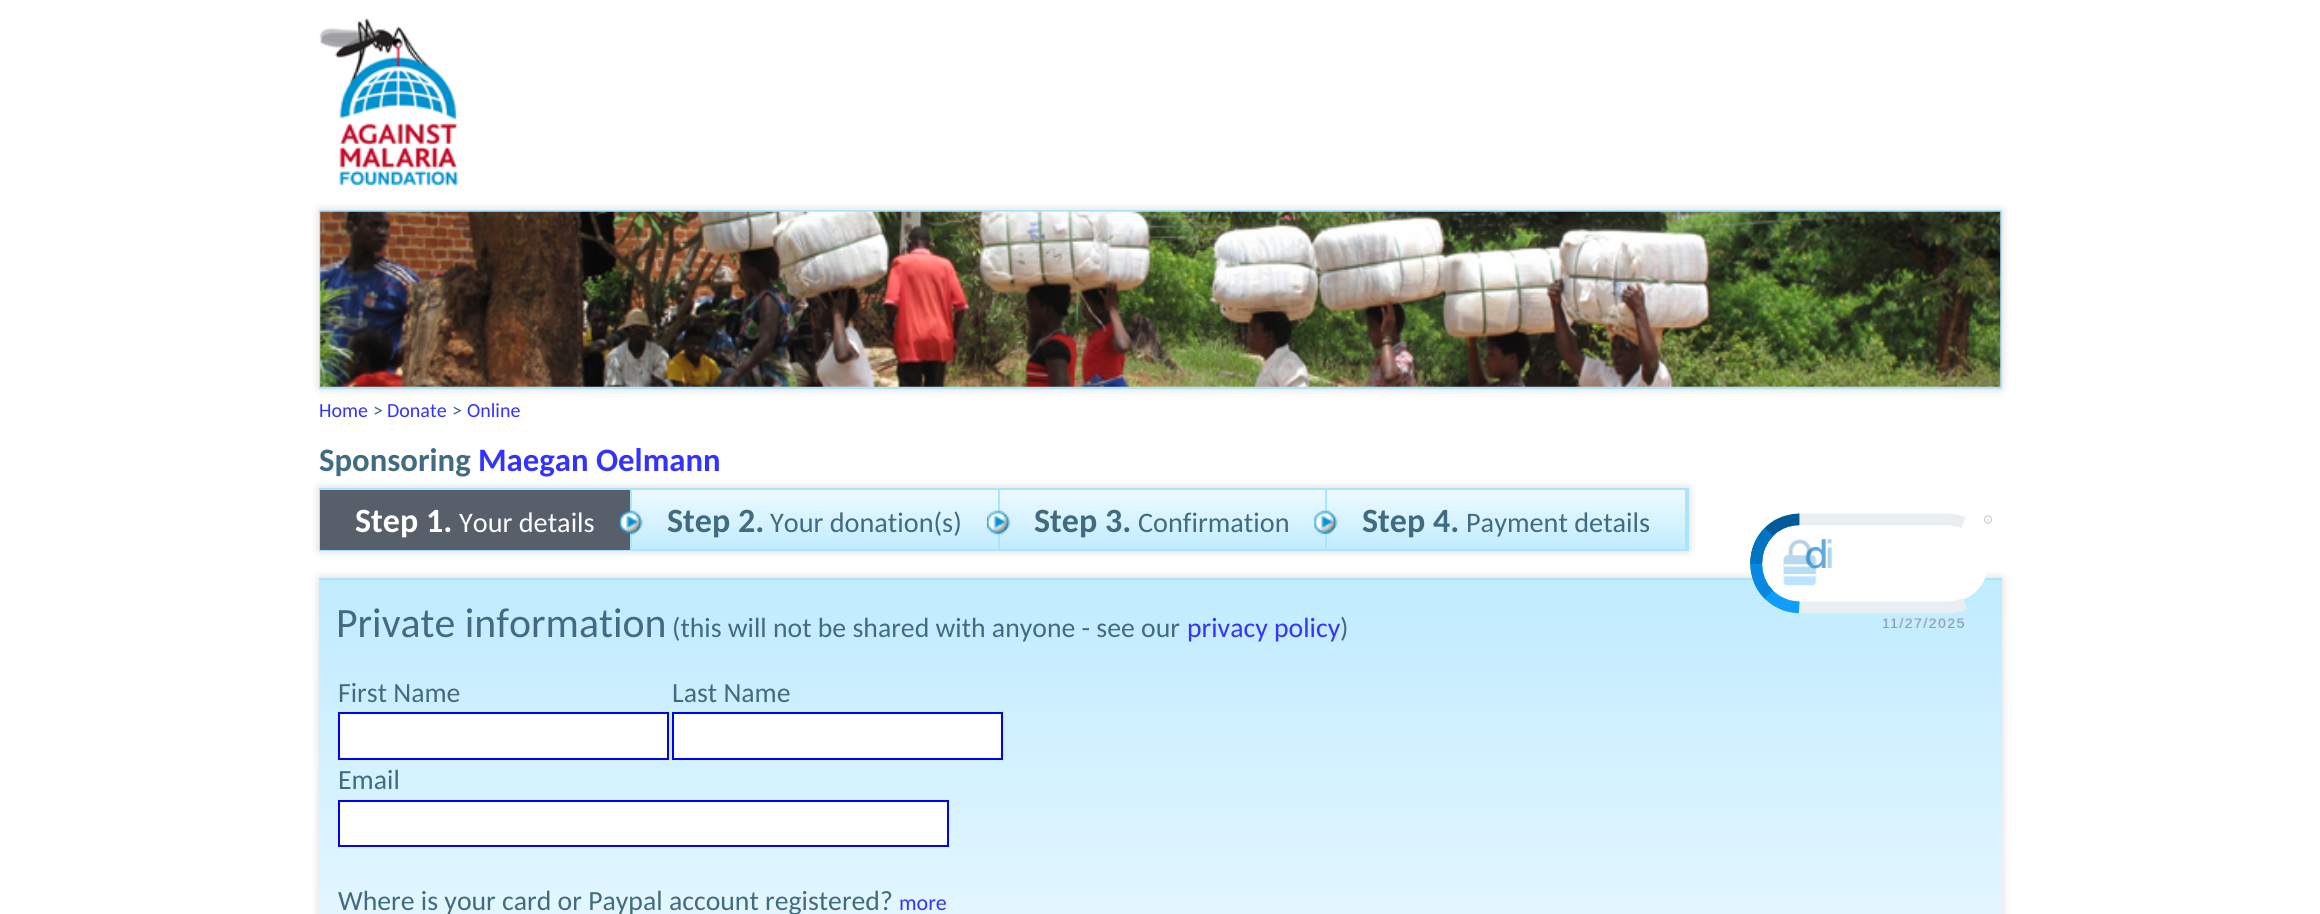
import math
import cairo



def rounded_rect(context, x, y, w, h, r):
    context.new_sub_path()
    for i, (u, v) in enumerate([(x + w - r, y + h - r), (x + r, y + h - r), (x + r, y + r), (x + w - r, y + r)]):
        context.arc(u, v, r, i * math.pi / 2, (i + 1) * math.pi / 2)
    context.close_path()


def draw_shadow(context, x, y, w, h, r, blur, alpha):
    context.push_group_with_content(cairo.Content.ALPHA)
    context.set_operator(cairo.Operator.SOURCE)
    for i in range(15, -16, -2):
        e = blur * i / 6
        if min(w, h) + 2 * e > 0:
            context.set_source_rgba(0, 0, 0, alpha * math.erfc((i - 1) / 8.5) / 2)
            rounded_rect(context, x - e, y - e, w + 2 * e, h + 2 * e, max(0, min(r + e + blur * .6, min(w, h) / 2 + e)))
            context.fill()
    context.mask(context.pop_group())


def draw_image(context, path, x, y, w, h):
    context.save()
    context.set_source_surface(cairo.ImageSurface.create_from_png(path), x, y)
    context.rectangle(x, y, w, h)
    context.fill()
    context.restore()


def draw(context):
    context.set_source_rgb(1, 1, 1)
    context.paint()
    draw_image(context, "images/1.png", 319, 18, 139, 168)
    context.set_source_rgb(0, 0, 0)
    draw_shadow(context, 319, 210, 1683, 179, 0, 4.5, 0.15)
    context.rectangle(320, 211, 1681, 177)
    context.set_source_rgb(171 / 255, 228 / 255, 1)
    context.stroke()
    draw_image(context, "images/2.png", 320, 211, 1681, 176)
    context.set_source_rgb(0, 0, 0)
    draw_shadow(context, 319, 488, 1370, 63, 0, 4.5, 0.15)
    gradient = cairo.LinearGradient(320, 490, 320, 550)
    gradient.add_color_stop_rgba(0.05, 235 / 255, 249 / 255, 1, 1)
    gradient.add_color_stop_rgba(1, 194 / 255, 236 / 255, 1, 1)
    context.set_source(gradient)
    context.rectangle(632, 490, 1053, 59)
    context.fill()
    context.rectangle(320, 489, 1368, 61)
    context.set_source_rgb(171 / 255, 228 / 255, 1)
    context.stroke()
    context.set_source_rgb(87 / 255, 95 / 255, 106 / 255)
    context.rectangle(320, 490, 310, 60)
    context.fill()
    context.set_source_rgb(171 / 255, 228 / 255, 1)
    context.rectangle(630, 490, 2, 60)
    context.fill()
    context.rectangle(998, 490, 2, 60)
    context.fill()
    draw_image(context, "images/3.png", 619, 510, 24, 25)
    context.rectangle(1325, 490, 2, 60)
    context.fill()
    draw_image(context, "images/4.png", 987, 510, 24, 25)
    context.rectangle(1685, 490, 2, 60)
    context.fill()
    draw_image(context, "images/5.png", 1314, 510, 24, 25)
    context.set_source_rgb(0, 0, 0)
    draw_shadow(context, 319, 578, 1683, 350, 0, 4.5, 0.15)
    gradient = cairo.LinearGradient(319, 579, 319, 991)
    gradient.add_color_stop_rgba(0.05, 194 / 255, 236 / 255, 1, 1)
    gradient.add_color_stop_rgba(1, 235 / 255, 249 / 255, 1, 1)
    context.set_source(gradient)
    context.rectangle(319, 580, 1683, 334)
    context.fill()
    context.set_source_rgb(171 / 255, 228 / 255, 1)
    context.rectangle(319, 578, 1683, 2)
    context.fill()
    draw_image(context, "images/6.png", 1750, 513, 243, 115)
    context.set_source_rgb(1, 1, 1)
    context.rectangle(339, 713, 329, 46)
    context.fill_preserve()
    context.set_source_rgb(0, 0, 1)
    context.stroke()
    context.set_source_rgb(1, 1, 1)
    context.rectangle(673, 713, 329, 46)
    context.fill_preserve()
    context.set_source_rgb(0, 0, 1)
    context.stroke()
    context.set_source_rgb(1, 1, 1)
    context.rectangle(339, 801, 609, 45)
    context.fill_preserve()
    context.set_source_rgb(0, 0, 1)
    context.stroke()
    context.select_font_face("Carlito")
    context.set_font_size(20)
    context.set_source_rgb(51 / 255, 51 / 255, 1)
    context.move_to(319, 417)
    context.show_text("Home")
    context.set_source_rgb(64 / 255, 107 / 255, 128 / 255)
    context.move_to(373, 417)
    context.show_text(">")
    context.set_source_rgb(51 / 255, 51 / 255, 1)
    context.move_to(387, 417)
    context.show_text("Donate")
    context.set_source_rgb(64 / 255, 107 / 255, 128 / 255)
    context.move_to(452, 417)
    context.show_text(">")
    context.set_source_rgb(51 / 255, 51 / 255, 1)
    context.move_to(467, 417)
    context.show_text("Online")
    context.select_font_face("Carlito", cairo.FontSlant.NORMAL, cairo.FontWeight.BOLD)
    context.set_font_size(32.75)
    context.set_source_rgb(64 / 255, 107 / 255, 128 / 255)
    context.move_to(319, 471)
    context.show_text("Sponsoring")
    context.set_source_rgb(51 / 255, 51 / 255, 1)
    context.move_to(478, 471)
    context.show_text("Maegan Oelmann")
    context.set_font_size(34)
    context.set_source_rgb(1, 1, 1)
    context.move_to(355, 532)
    context.show_text("Step 1.")
    context.select_font_face("Carlito")
    context.set_font_size(28.25)
    context.move_to(459, 532)
    context.show_text("Your details")
    context.select_font_face("Carlito", cairo.FontSlant.NORMAL, cairo.FontWeight.BOLD)
    context.set_font_size(34)
    context.set_source_rgb(64 / 255, 107 / 255, 128 / 255)
    context.move_to(667, 532)
    context.show_text("Step 2.")
    context.select_font_face("Carlito")
    context.set_font_size(28.25)
    context.move_to(770, 532)
    context.show_text("Your donation(s)")
    context.select_font_face("Carlito", cairo.FontSlant.NORMAL, cairo.FontWeight.BOLD)
    context.set_font_size(34)
    context.move_to(1034, 532)
    context.show_text("Step 3.")
    context.select_font_face("Carlito")
    context.set_font_size(28.25)
    context.move_to(1138, 532)
    context.show_text("Confirmation")
    context.select_font_face("Carlito", cairo.FontSlant.NORMAL, cairo.FontWeight.BOLD)
    context.set_font_size(34)
    context.move_to(1362, 532)
    context.show_text("Step 4.")
    context.select_font_face("Carlito")
    context.set_font_size(28.25)
    context.move_to(1466, 532)
    context.show_text("Payment details")
    context.set_font_size(41.75)
    context.move_to(336, 637)
    context.show_text("Private information")
    context.set_font_size(27.75)
    context.move_to(672, 637)
    context.show_text("(this will not be shared with anyone - see our")
    context.set_source_rgb(51 / 255, 51 / 255, 1)
    context.move_to(1187, 637)
    context.show_text("privacy policy")
    context.set_source_rgb(64 / 255, 107 / 255, 128 / 255)
    context.move_to(1340, 637)
    context.show_text(")")
    context.move_to(338, 702)
    context.show_text("First Name")
    context.move_to(672, 702)
    context.show_text("Last Name")
    context.move_to(338, 789)
    context.show_text("Email")
    context.move_to(338, 910)
    context.show_text("Where is your card or Paypal account registered?")
    context.set_font_size(22)
    context.set_source_rgb(51 / 255, 51 / 255, 1)
    context.move_to(899, 910)
    context.show_text("more")


surface = cairo.ImageSurface(cairo.Format.RGB24, 2320, 914)
context = cairo.Context(surface)
options = cairo.FontOptions()
options.set_hint_metrics(cairo.HintMetrics.OFF)
options.set_hint_style(cairo.HintStyle.NONE)
context.set_font_options(options)
context.set_miter_limit(4)
draw(context)
surface.write_to_png("out.png")
